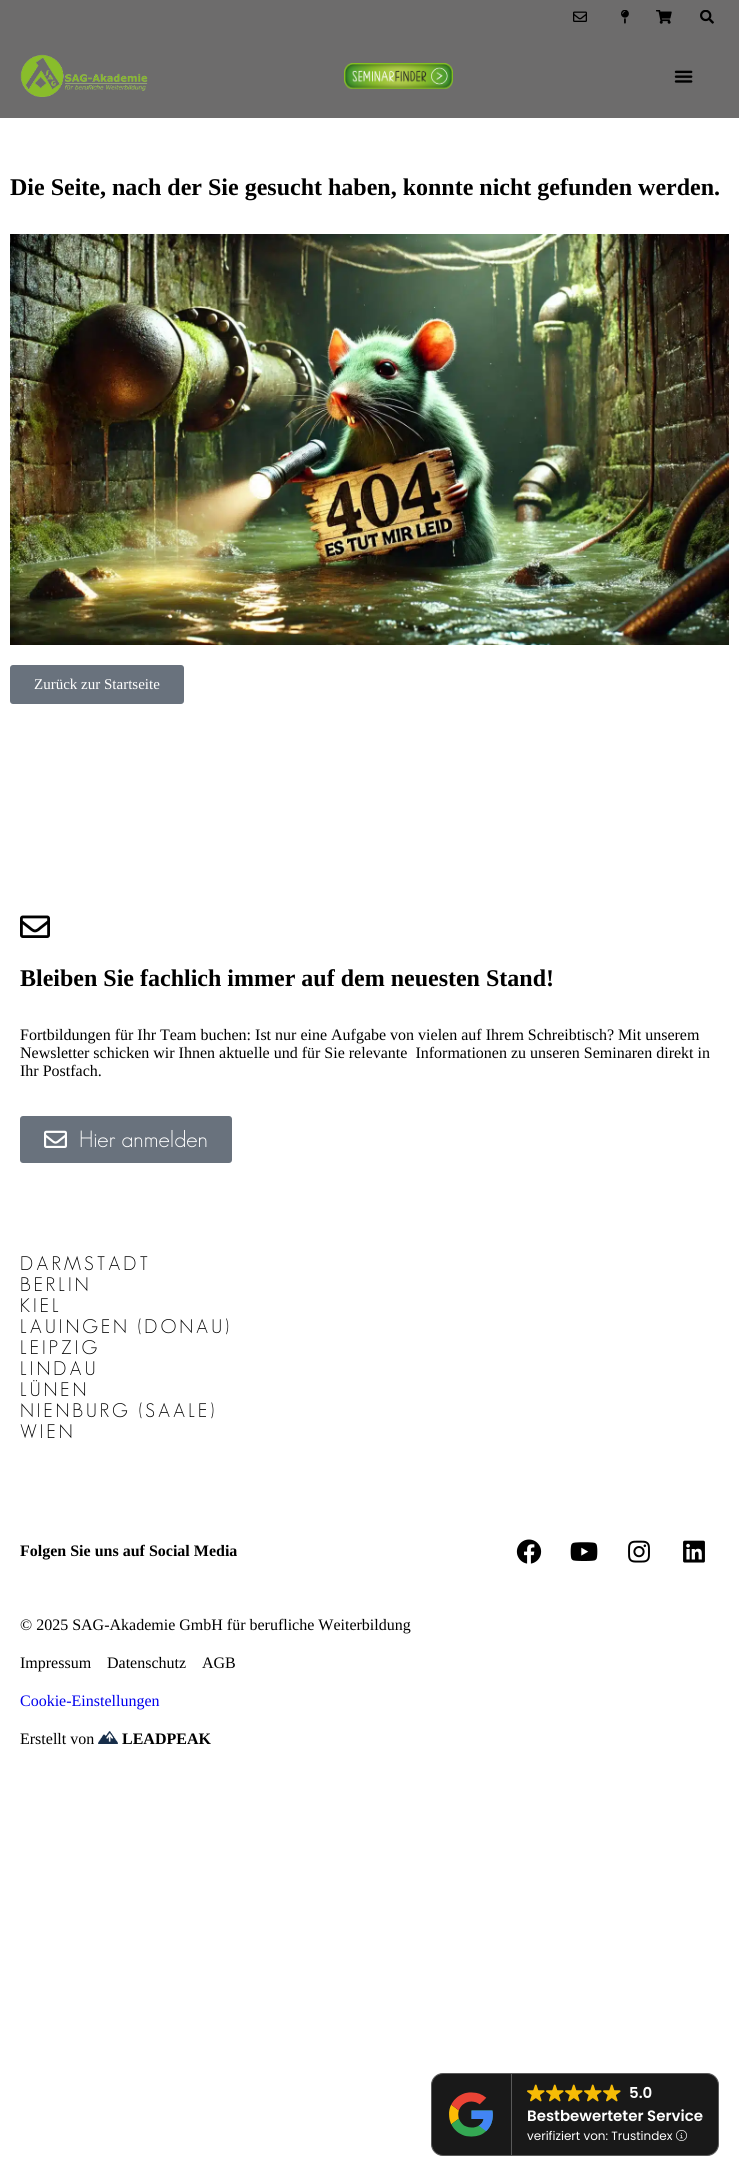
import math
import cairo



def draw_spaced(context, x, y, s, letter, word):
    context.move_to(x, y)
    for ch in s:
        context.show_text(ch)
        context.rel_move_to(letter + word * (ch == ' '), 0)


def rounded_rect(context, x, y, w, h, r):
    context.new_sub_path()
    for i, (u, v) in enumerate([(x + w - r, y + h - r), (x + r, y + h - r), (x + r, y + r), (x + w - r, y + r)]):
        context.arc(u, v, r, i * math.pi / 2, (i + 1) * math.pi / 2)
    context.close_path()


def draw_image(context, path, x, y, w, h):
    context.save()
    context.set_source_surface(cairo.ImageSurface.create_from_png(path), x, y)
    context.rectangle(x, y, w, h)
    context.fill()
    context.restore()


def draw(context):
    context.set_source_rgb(1, 1, 1)
    context.paint()
    context.set_source_rgb(109 / 255, 108 / 255, 108 / 255)
    context.rectangle(0, 0, 739, 118)
    context.fill()
    draw_image(context, "images/1.png", 573, 11, 14, 11)
    draw_image(context, "images/2.png", 621, 10, 8, 14)
    draw_image(context, "images/3.png", 656, 10, 16, 14)
    draw_image(context, "images/4.png", 700, 10, 14, 14)
    draw_image(context, "images/5.png", 20, 54, 128, 43)
    draw_image(context, "images/6.png", 344, 63, 109, 26)
    draw_image(context, "images/7.png", 674, 70, 19, 13)
    draw_image(context, "images/8.png", 10, 234, 719, 411)
    context.set_source_rgb(105 / 255, 114 / 255, 125 / 255)
    rounded_rect(context, 10, 665, 174, 39, 3)
    context.fill()
    draw_image(context, "images/9.png", 20, 915, 30, 23)
    rounded_rect(context, 20, 1116, 212, 47, 3)
    context.fill()
    draw_image(context, "images/10.png", 44, 1130, 23, 18)
    draw_image(context, "images/11.png", 516, 1539, 26, 25)
    draw_image(context, "images/12.png", 570, 1542, 28, 19)
    draw_image(context, "images/13.png", 628, 1540, 22, 23)
    draw_image(context, "images/14.png", 683, 1540, 22, 23)
    draw_image(context, "images/15.png", 98, 1731, 20, 13)
    context.set_source_rgb(25 / 255, 25 / 255, 25 / 255)
    rounded_rect(context, 431.5, 2073.5, 287, 82, 11.5)
    context.fill_preserve()
    context.set_source_rgb(89 / 255, 89 / 255, 89 / 255)
    context.set_line_width(1)
    context.stroke()
    context.rectangle(511, 2074, 1, 81)
    context.fill()
    draw_image(context, "images/16.png", 449, 2092, 44, 45)
    draw_image(context, "images/17.png", 527, 2084, 18, 18)
    draw_image(context, "images/17.png", 546, 2084, 18, 18)
    draw_image(context, "images/17.png", 565, 2084, 18, 18)
    draw_image(context, "images/17.png", 584, 2084, 18, 18)
    draw_image(context, "images/17.png", 603, 2084, 18, 18)
    draw_image(context, "images/18.png", 676, 2130, 11, 11)
    context.select_font_face("Liberation Serif", cairo.FontSlant.NORMAL, cairo.FontWeight.BOLD)
    context.set_font_size(24)
    context.set_source_rgb(0, 0, 0)
    context.move_to(10, 195)
    context.show_text("Die Seite, nach der Sie gesucht haben, konnte nicht gefunden werden.")
    context.select_font_face("Liberation Serif")
    context.set_font_size(15)
    context.set_source_rgb(1, 1, 1)
    context.move_to(34, 689)
    context.show_text("Zurück zur Startseite")
    context.select_font_face("Liberation Serif", cairo.FontSlant.NORMAL, cairo.FontWeight.BOLD)
    context.set_font_size(24)
    context.set_source_rgb(0, 0, 0)
    context.move_to(20, 986)
    context.show_text("Bleiben Sie fachlich immer auf dem neuesten Stand!")
    context.select_font_face("Liberation Serif")
    context.set_font_size(16)
    context.move_to(20, 1040)
    context.show_text("Fortbildungen für Ihr Team buchen: Ist nur eine Aufgabe von vielen auf Ihrem Schreibtisch? Mit unserem")
    context.move_to(20, 1058)
    context.show_text("Newsletter schicken wir Ihnen aktuelle und für Sie relevante  Informationen zu unseren Seminaren direkt in")
    context.move_to(20, 1076)
    context.show_text("Ihr Postfach.")
    context.select_font_face("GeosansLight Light")
    context.set_font_size(23)
    context.set_source_rgb(1, 1, 1)
    context.move_to(79, 1147)
    context.show_text("Hier anmelden")
    context.set_font_size(19.25)
    context.set_source_rgb(0, 0, 0)
    draw_spaced(context, 20, 1270, "DARMSTADT", 3, 0)
    draw_spaced(context, 20, 1291, "BERLIN", 3, 0)
    draw_spaced(context, 20, 1312, "KIEL", 3, 0)
    draw_spaced(context, 20, 1333, "LAUINGEN (DONAU)", 3, 0)
    draw_spaced(context, 20, 1354, "LEIPZIG", 3, 0)
    draw_spaced(context, 20, 1375, "LINDAU", 3, 0)
    draw_spaced(context, 20, 1396, "LÜNEN", 3, 0)
    draw_spaced(context, 20, 1417, "NIENBURG (SAALE)", 3, 0)
    draw_spaced(context, 20, 1438, "WIEN", 3, 0)
    context.select_font_face("Liberation Serif", cairo.FontSlant.NORMAL, cairo.FontWeight.BOLD)
    context.set_font_size(16)
    context.move_to(20, 1556)
    context.show_text("Folgen Sie uns auf Social Media")
    context.select_font_face("Liberation Serif")
    context.move_to(20, 1630)
    context.show_text("© 2025 SAG-Akademie GmbH für berufliche Weiterbildung")
    context.move_to(20, 1668)
    context.show_text("Impressum")
    context.move_to(107, 1668)
    context.show_text("Datenschutz")
    context.move_to(202, 1668)
    context.show_text("AGB")
    context.set_source_rgb(0, 0, 238 / 255)
    context.move_to(20, 1706)
    context.show_text("Cookie-Einstellungen")
    context.set_source_rgb(0, 0, 0)
    context.move_to(20, 1744)
    context.show_text("Erstellt von")
    context.select_font_face("Liberation Serif", cairo.FontSlant.NORMAL, cairo.FontWeight.BOLD)
    context.move_to(122, 1744)
    context.show_text("LEADPEAK")
    context.select_font_face("Poppins SemiBold")
    context.set_font_size(15)
    context.set_source_rgb(1, 1, 1)
    context.move_to(629, 2098)
    context.show_text("5.0")
    context.move_to(527, 2121)
    context.show_text("Bestbewerteter Service")
    context.select_font_face("Poppins")
    context.set_font_size(12)
    context.move_to(527, 2140)
    context.show_text("verifiziert von: Trustindex")


surface = cairo.ImageSurface(cairo.Format.RGB24, 739, 2181)
context = cairo.Context(surface)
options = cairo.FontOptions()
options.set_hint_metrics(cairo.HintMetrics.OFF)
options.set_hint_style(cairo.HintStyle.NONE)
context.set_font_options(options)
context.set_miter_limit(4)
draw(context)
surface.write_to_png("out.png")
